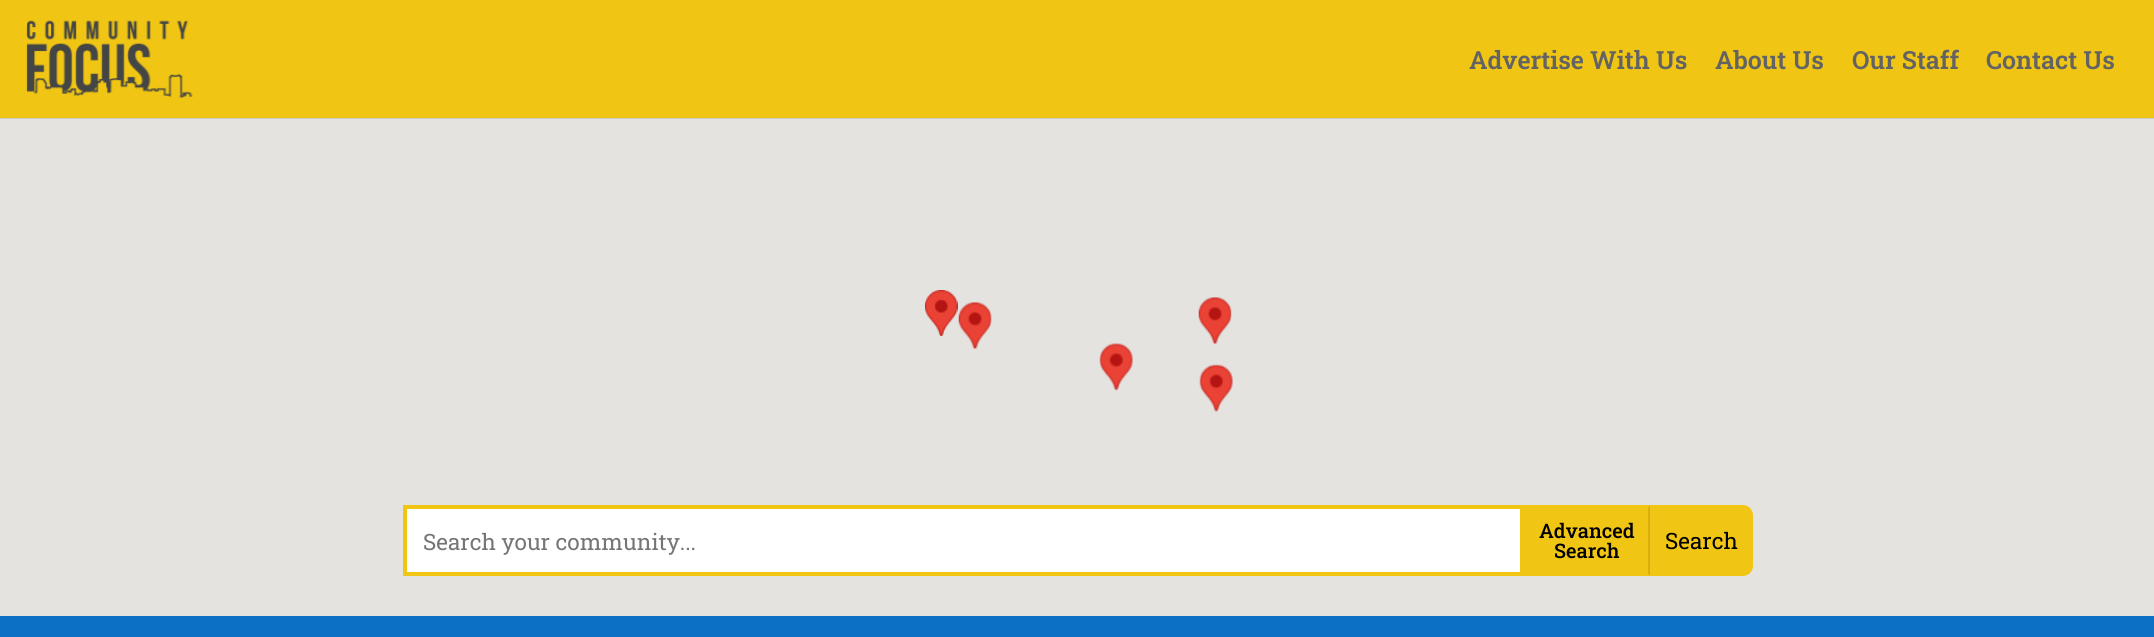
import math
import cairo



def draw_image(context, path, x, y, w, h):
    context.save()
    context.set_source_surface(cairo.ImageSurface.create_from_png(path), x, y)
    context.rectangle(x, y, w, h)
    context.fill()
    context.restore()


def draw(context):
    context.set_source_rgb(12 / 255, 113 / 255, 195 / 255)
    context.paint()
    context.set_source_rgb(206 / 255, 204 / 255, 201 / 255)
    context.rectangle(0, 118, 2154, 1)
    context.fill()
    context.set_source_rgb(240 / 255, 197 / 255, 20 / 255)
    context.rectangle(0, 0, 2154, 118)
    context.fill()
    draw_image(context, "images/1.png", 26, 20, 167, 78)
    context.set_source_rgb(229 / 255, 227 / 255, 223 / 255)
    context.rectangle(0, 119, 2154, 497)
    context.fill()
    draw_image(context, "images/2.png", 925, 290, 33, 46)
    draw_image(context, "images/3.png", 958, 302, 34, 47)
    draw_image(context, "images/4.png", 1198, 297, 34, 47)
    draw_image(context, "images/5.png", 1099, 343, 34, 48)
    draw_image(context, "images/6.png", 1199, 364, 34, 48)
    context.set_source_rgb(1, 1, 1)
    context.rectangle(405, 507, 1117, 67)
    context.fill_preserve()
    context.set_source_rgb(240 / 255, 197 / 255, 20 / 255)
    context.set_line_width(4)
    context.stroke()
    context.rectangle(1524, 505, 126, 71)
    context.fill()
    context.set_source_rgb(216 / 255, 176 / 255, 14 / 255)
    context.new_path()
    context.move_to(1650, 505)
    context.line_to(1650, 576)
    context.line_to(1648, 574)
    context.line_to(1648, 508)
    context.close_path()
    context.fill()
    context.set_source_rgb(240 / 255, 197 / 255, 20 / 255)
    context.new_path()
    context.move_to(1650, 576)
    context.line_to(1524, 576)
    context.line_to(1526, 574)
    context.line_to(1648, 574)
    context.close_path()
    context.fill()
    context.new_path()
    context.move_to(1651.5, 506.5)
    context.line_to(1743, 506.5)
    context.curve_to(1747.5, 506.5, 1751.5, 510.5, 1751.5, 515)
    context.line_to(1751.5, 566)
    context.curve_to(1751.5, 570.5, 1747.5, 574.5, 1743, 574.5)
    context.line_to(1651.5, 574.5)
    context.close_path()
    context.fill_preserve()
    context.set_line_width(3)
    context.stroke()
    context.select_font_face("Roboto Slab SemiBold")
    context.set_font_size(25)
    context.set_source_rgb(99 / 255, 99 / 255, 99 / 255)
    context.move_to(1469, 69)
    context.show_text("Advertise With Us")
    context.move_to(1715, 69)
    context.show_text("About Us")
    context.move_to(1852, 69)
    context.show_text("Our Staff")
    context.move_to(1986, 69)
    context.show_text("Contact Us")
    context.select_font_face("Roboto Slab")
    context.set_font_size(22.5)
    context.set_source_rgb(117 / 255, 117 / 255, 117 / 255)
    context.move_to(423, 550)
    context.show_text("Search your community...")
    context.select_font_face("Roboto Slab Medium")
    context.set_font_size(20)
    context.set_source_rgb(0, 0, 0)
    context.move_to(1539, 538)
    context.show_text("Advanced")
    context.move_to(1554, 558)
    context.show_text("Search")
    context.select_font_face("Roboto Slab")
    context.set_font_size(22.5)
    context.move_to(1665, 549)
    context.show_text("Search")


surface = cairo.ImageSurface(cairo.Format.RGB24, 2154, 637)
context = cairo.Context(surface)
options = cairo.FontOptions()
options.set_hint_metrics(cairo.HintMetrics.OFF)
options.set_hint_style(cairo.HintStyle.NONE)
context.set_font_options(options)
context.set_miter_limit(4)
draw(context)
surface.write_to_png("out.png")
